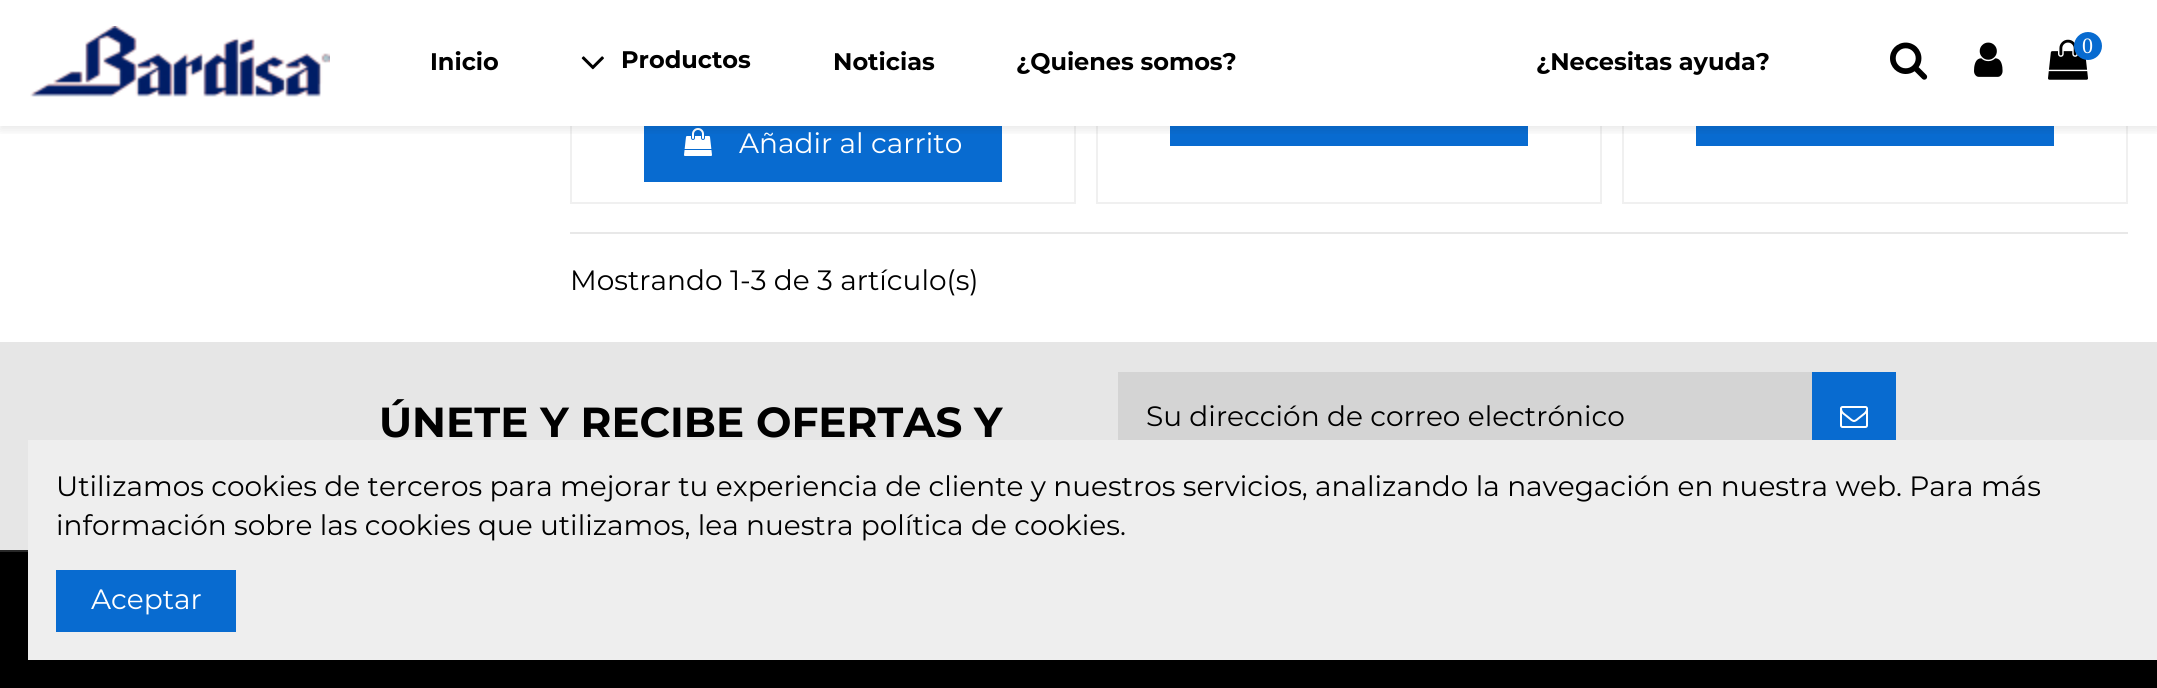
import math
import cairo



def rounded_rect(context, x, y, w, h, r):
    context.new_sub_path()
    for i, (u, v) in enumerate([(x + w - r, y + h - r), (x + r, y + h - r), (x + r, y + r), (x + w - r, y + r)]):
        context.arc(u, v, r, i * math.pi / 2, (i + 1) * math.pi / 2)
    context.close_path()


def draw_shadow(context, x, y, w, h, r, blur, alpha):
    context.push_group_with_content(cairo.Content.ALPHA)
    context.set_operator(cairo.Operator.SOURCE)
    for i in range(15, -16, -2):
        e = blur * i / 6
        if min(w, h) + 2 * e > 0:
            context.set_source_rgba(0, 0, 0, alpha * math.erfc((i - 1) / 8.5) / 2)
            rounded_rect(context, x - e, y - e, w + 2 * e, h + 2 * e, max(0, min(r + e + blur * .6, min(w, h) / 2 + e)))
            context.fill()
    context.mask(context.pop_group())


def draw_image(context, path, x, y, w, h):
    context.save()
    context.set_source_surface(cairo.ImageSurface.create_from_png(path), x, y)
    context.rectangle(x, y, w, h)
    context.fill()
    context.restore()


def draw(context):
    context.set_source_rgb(1, 1, 1)
    context.paint()
    context.rectangle(571, -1, 504, 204)
    context.set_source_rgb(240 / 255, 240 / 255, 240 / 255)
    context.stroke()
    context.rectangle(1097, -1, 504, 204)
    context.stroke()
    context.rectangle(1623, -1, 504, 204)
    context.stroke()
    context.set_source_rgb(1, 1, 1)
    context.rectangle(570, 0, 1558, 126)
    context.fill()
    context.set_source_rgb(8 / 255, 107 / 255, 208 / 255)
    context.rectangle(644, 126, 358, 56)
    context.fill()
    draw_image(context, "images/6.png", 684, 128, 28, 28)
    context.rectangle(1170, 126, 358, 20)
    context.fill()
    context.rectangle(1696, 126, 358, 20)
    context.fill()
    context.save()
    context.rectangle(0, 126, 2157, 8)
    context.clip()
    context.set_source_rgb(30 / 255, 30 / 255, 30 / 255)
    draw_shadow(context, 0, 4, 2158, 126, 0, 5, 0.1)
    context.restore()
    draw_image(context, "images/1.png", 30, 26, 300, 71)
    draw_image(context, "images/2.png", 1890, 42, 38, 38)
    draw_image(context, "images/3.png", 1974, 42, 29, 35)
    draw_image(context, "images/4.png", 2048, 39, 40, 41)
    context.arc(2088, 46, 14, 0, 2 * math.pi)
    context.fill()
    draw_image(context, "images/5.png", 581, 56, 23, 14)
    context.set_source_rgb(232 / 255, 232 / 255, 232 / 255)
    context.rectangle(570, 232, 1558, 2)
    context.fill()
    context.set_source_rgb(0, 0, 0)
    context.rectangle(0, 552, 2157, 136)
    context.fill()
    context.set_source_rgb(230 / 255, 230 / 255, 230 / 255)
    context.rectangle(0, 342, 2157, 208)
    context.fill()
    context.set_source_rgb(212 / 255, 212 / 255, 212 / 255)
    context.rectangle(1118, 372, 694, 68)
    context.fill()
    context.set_source_rgb(8 / 255, 107 / 255, 208 / 255)
    context.rectangle(1812, 372, 84, 68)
    context.fill()
    draw_image(context, "images/7.png", 1840, 406, 28, 22)
    context.set_source_rgb(40 / 255, 40 / 255, 40 / 255)
    context.rectangle(0, 550, 28, 2)
    context.fill()
    context.set_source_rgb(238 / 255, 238 / 255, 238 / 255)
    context.rectangle(28, 440, 2129, 220)
    context.fill()
    context.set_source_rgb(8 / 255, 107 / 255, 208 / 255)
    context.rectangle(56, 570, 180, 62)
    context.fill()
    context.select_font_face("Liberation Serif")
    context.set_font_size(22)
    context.set_source_rgb(1, 1, 1)
    context.move_to(2082, 53)
    context.show_text("0")
    context.select_font_face("Montserrat", cairo.FontSlant.NORMAL, cairo.FontWeight.BOLD)
    context.set_font_size(24)
    context.set_source_rgb(0, 0, 0)
    context.move_to(430, 70)
    context.show_text("Inicio")
    context.move_to(621, 68)
    context.show_text("Productos")
    context.move_to(833, 70)
    context.show_text("Noticias")
    context.move_to(1016, 70)
    context.show_text("¿Quienes somos?")
    context.move_to(1536, 70)
    context.show_text("¿Necesitas ayuda?")
    context.select_font_face("Montserrat")
    context.set_font_size(28)
    context.set_source_rgb(1, 1, 1)
    context.move_to(739, 153)
    context.show_text("Añadir al carrito")
    context.set_source_rgb(0, 0, 0)
    context.move_to(570, 290)
    context.show_text("Mostrando 1-3 de 3 artículo(s)")
    context.select_font_face("Montserrat", cairo.FontSlant.NORMAL, cairo.FontWeight.BOLD)
    context.set_font_size(42)
    context.move_to(379, 437)
    context.show_text("ÚNETE Y RECIBE OFERTAS Y")
    context.select_font_face("Montserrat")
    context.set_font_size(28)
    context.move_to(1146, 426)
    context.show_text("Su dirección de correo electrónico")
    context.move_to(56, 496)
    context.show_text("Utilizamos cookies de terceros para mejorar tu experiencia de cliente y nuestros servicios, analizando la navegación en nuestra web. Para más")
    context.move_to(56, 535)
    context.show_text("información sobre las cookies que utilizamos, lea nuestra política de cookies.")
    context.set_source_rgb(1, 1, 1)
    context.move_to(91, 609)
    context.show_text("Aceptar")


surface = cairo.ImageSurface(cairo.Format.RGB24, 2157, 688)
context = cairo.Context(surface)
options = cairo.FontOptions()
options.set_hint_metrics(cairo.HintMetrics.OFF)
options.set_hint_style(cairo.HintStyle.NONE)
context.set_font_options(options)
context.set_miter_limit(4)
draw(context)
surface.write_to_png("out.png")
